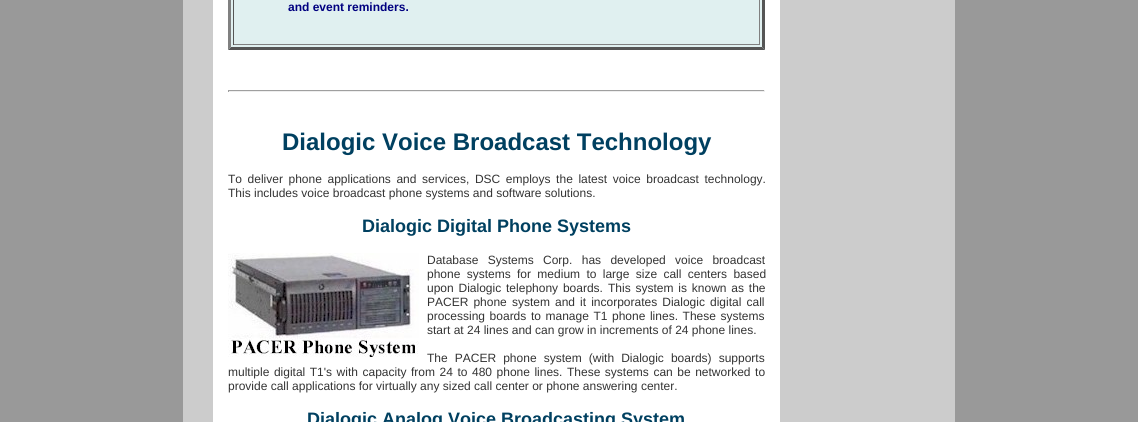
import math
import cairo



def draw_spaced(context, x, y, s, letter, word):
    context.move_to(x, y)
    for ch in s:
        context.show_text(ch)
        context.rel_move_to(letter + word * (ch == ' '), 0)


def draw_image(context, path, x, y, w, h):
    context.save()
    context.set_source_surface(cairo.ImageSurface.create_from_png(path), x, y)
    context.rectangle(x, y, w, h)
    context.fill()
    context.restore()


def draw(context):
    context.set_source_rgb(153 / 255, 153 / 255, 153 / 255)
    context.paint()
    context.set_source_rgb(1, 1, 1)
    context.rectangle(213, 0, 567, 422)
    context.fill()
    context.set_source_rgb(204 / 255, 204 / 255, 204 / 255)
    context.rectangle(183, 0, 30, 422)
    context.fill()
    context.set_source_rgb(224 / 255, 240 / 255, 240 / 255)
    context.rectangle(228, 0, 537, 50)
    context.fill()
    context.set_source_rgb(85 / 255, 85 / 255, 85 / 255)
    context.new_path()
    context.move_to(765, -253)
    context.line_to(765, 50)
    context.line_to(762, 47)
    context.line_to(762, -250)
    context.close_path()
    context.fill()
    context.new_path()
    context.move_to(765, 50)
    context.line_to(228, 50)
    context.line_to(231, 47)
    context.line_to(762, 47)
    context.close_path()
    context.fill()
    context.set_source_rgb(128 / 255, 128 / 255, 128 / 255)
    context.new_path()
    context.move_to(228, 50)
    context.line_to(228, -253)
    context.line_to(231, -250)
    context.line_to(231, 47)
    context.close_path()
    context.fill()
    context.rectangle(759, 0, 1, 45)
    context.fill()
    context.rectangle(233, 44, 527, 1)
    context.fill()
    context.set_source_rgb(85 / 255, 85 / 255, 85 / 255)
    context.rectangle(233, 0, 1, 45)
    context.fill()
    context.set_source_rgb(159 / 255, 159 / 255, 159 / 255)
    context.rectangle(228, 90, 537, 1)
    context.fill()
    context.set_source_rgb(238 / 255, 238 / 255, 238 / 255)
    context.rectangle(764, 90, 1, 2)
    context.fill()
    context.rectangle(228, 91, 537, 1)
    context.fill()
    context.set_source_rgb(159 / 255, 159 / 255, 159 / 255)
    context.rectangle(228, 90, 1, 2)
    context.fill()
    draw_image(context, "images/1.png", 228, 253, 191, 104)
    context.set_source_rgb(204 / 255, 204 / 255, 204 / 255)
    context.rectangle(780, 0, 175, 422)
    context.fill()
    context.select_font_face("Liberation Sans", cairo.FontSlant.NORMAL, cairo.FontWeight.BOLD)
    context.set_font_size(12)
    context.set_source_rgb(0, 0, 128 / 255)
    context.move_to(288, 11)
    context.show_text("and event reminders.")
    context.set_font_size(24)
    context.set_source_rgb(0, 64 / 255, 96 / 255)
    context.move_to(282, 150)
    context.show_text("Dialogic Voice Broadcast Technology")
    context.select_font_face("Liberation Sans")
    context.set_font_size(12)
    context.set_source_rgb(51 / 255, 51 / 255, 51 / 255)
    draw_spaced(context, 228, 183, "To deliver phone applications and services, DSC employs the latest voice broadcast technology.", 0, 2.25)
    context.move_to(228, 197)
    context.show_text("This includes voice broadcast phone systems and software solutions.")
    context.select_font_face("Liberation Sans", cairo.FontSlant.NORMAL, cairo.FontWeight.BOLD)
    context.set_font_size(18)
    context.set_source_rgb(0, 64 / 255, 96 / 255)
    context.move_to(362, 232)
    context.show_text("Dialogic Digital Phone Systems")
    context.select_font_face("Liberation Sans")
    context.set_font_size(12)
    context.set_source_rgb(51 / 255, 51 / 255, 51 / 255)
    draw_spaced(context, 427, 264, "Database Systems Corp. has developed voice broadcast", 0, 6)
    draw_spaced(context, 427, 278, "phone systems for medium to large size call centers based", 0, 3)
    draw_spaced(context, 427, 292, "upon Dialogic telephony boards.", 0, 1.5)
    draw_spaced(context, 608, 292, "This system is known as the", 0, 1.5)
    draw_spaced(context, 427, 306, "PACER phone system and it incorporates Dialogic digital call", 0, 1.75)
    draw_spaced(context, 427, 320, "processing boards to manage T1 phone lines. These systems", 0, 1.25)
    context.move_to(427, 334)
    context.show_text("start at 24 lines and can grow in increments of 24 phone lines.")
    draw_spaced(context, 427, 362, "The PACER phone system (with Dialogic boards) supports", 0, 3.75)
    draw_spaced(context, 228, 376, "multiple digital T1's with capacity from 24 to 480 phone lines. These systems can be networked to", 0, 1.2)
    context.move_to(228, 390)
    context.show_text("provide call applications for virtually any sized call center or phone answering center.")
    context.select_font_face("Liberation Sans", cairo.FontSlant.NORMAL, cairo.FontWeight.BOLD)
    context.set_font_size(18)
    context.set_source_rgb(0, 64 / 255, 96 / 255)
    context.move_to(307, 425)
    context.show_text("Dialogic Analog Voice Broadcasting System")


surface = cairo.ImageSurface(cairo.Format.RGB24, 1138, 422)
context = cairo.Context(surface)
options = cairo.FontOptions()
options.set_hint_metrics(cairo.HintMetrics.OFF)
options.set_hint_style(cairo.HintStyle.NONE)
context.set_font_options(options)
context.set_miter_limit(4)
draw(context)
surface.write_to_png("out.png")
